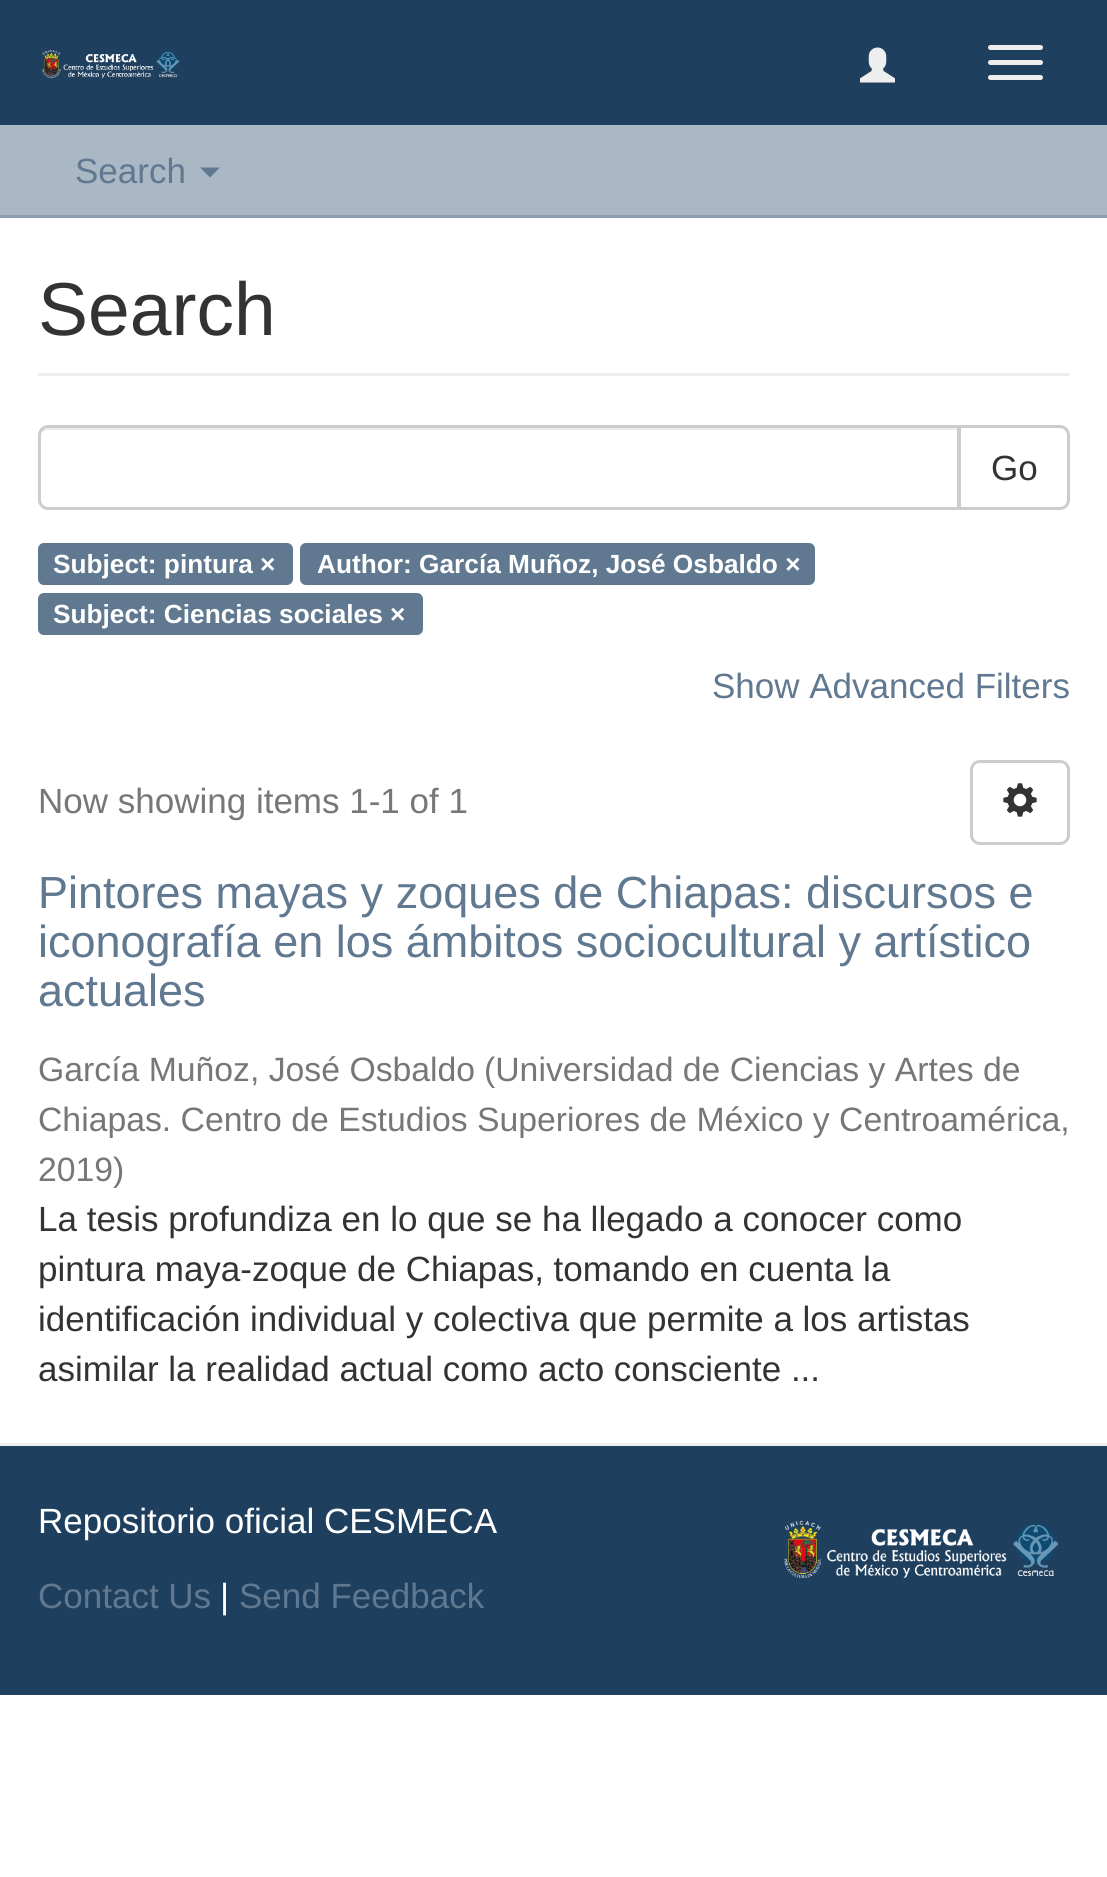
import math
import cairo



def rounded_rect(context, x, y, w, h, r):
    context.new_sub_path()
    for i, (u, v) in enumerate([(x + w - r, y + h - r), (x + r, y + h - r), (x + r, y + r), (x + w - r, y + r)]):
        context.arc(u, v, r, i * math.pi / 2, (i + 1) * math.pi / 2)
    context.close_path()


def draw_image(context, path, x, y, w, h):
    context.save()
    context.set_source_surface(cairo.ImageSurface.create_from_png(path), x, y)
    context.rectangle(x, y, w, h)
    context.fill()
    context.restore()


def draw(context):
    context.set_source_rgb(1, 1, 1)
    context.paint()
    context.set_source_rgb(31 / 255, 63 / 255, 94 / 255)
    context.rectangle(0, 0, 1107, 125)
    context.fill()
    draw_image(context, "images/1.png", 42, 50, 138, 29)
    draw_image(context, "images/2.png", 860, 47, 35, 36)
    context.set_source_rgb(238 / 255, 238 / 255, 238 / 255)
    rounded_rect(context, 988, 45, 55, 5, 2.5)
    context.fill()
    rounded_rect(context, 988, 60, 55, 5, 2.5)
    context.fill()
    rounded_rect(context, 988, 75, 55, 5, 2.5)
    context.fill()
    context.set_source_rgb(170 / 255, 184 / 255, 198 / 255)
    context.rectangle(0, 125, 1107, 90)
    context.fill()
    context.set_source_rgb(139 / 255, 158 / 255, 178 / 255)
    context.rectangle(0, 215, 1107, 3)
    context.fill()
    context.set_source_rgb(96 / 255, 120 / 255, 144 / 255)
    context.new_path()
    context.move_to(200, 167.5)
    context.line_to(220, 167.5)
    context.line_to(210, 177.5)
    context.close_path()
    context.fill()
    context.set_source_rgb(238 / 255, 238 / 255, 238 / 255)
    context.rectangle(38, 373, 1032, 3)
    context.fill()
    context.new_path()
    context.move_to(959.5, 426.5)
    context.line_to(1060, 426.5)
    context.curve_to(1064.5, 426.5, 1068.5, 430.5, 1068.5, 435)
    context.line_to(1068.5, 500)
    context.curve_to(1068.5, 504.5, 1064.5, 508.5, 1060, 508.5)
    context.line_to(959.5, 508.5)
    context.close_path()
    context.set_source_rgb(204 / 255, 204 / 255, 204 / 255)
    context.set_line_width(3)
    context.stroke()
    context.set_source_rgb(1, 1, 1)
    context.new_path()
    context.move_to(48, 425)
    context.line_to(960, 425)
    context.line_to(960, 510)
    context.line_to(48, 510)
    context.curve_to(42.5, 510, 38, 505.5, 38, 500)
    context.line_to(38, 435)
    context.curve_to(38, 429.5, 42.5, 425, 48, 425)
    context.close_path()
    context.fill()
    context.set_source_rgb(236 / 255, 236 / 255, 236 / 255)
    context.new_path()
    context.move_to(48, 430)
    context.line_to(958, 430)
    context.line_to(958, 428)
    context.line_to(48, 428)
    context.curve_to(44, 428, 40, 432, 40, 436)
    context.line_to(40, 438)
    context.curve_to(40, 433, 43, 430, 48, 430)
    context.close_path()
    context.fill()
    context.new_path()
    context.move_to(48, 426.5)
    context.line_to(958.5, 426.5)
    context.line_to(958.5, 508.5)
    context.line_to(48, 508.5)
    context.curve_to(43.5, 508.5, 39.5, 504.5, 39.5, 500)
    context.line_to(39.5, 435)
    context.curve_to(39.5, 430.5, 43.5, 426.5, 48, 426.5)
    context.close_path()
    context.set_source_rgb(204 / 255, 204 / 255, 204 / 255)
    context.stroke()
    context.set_source_rgb(96 / 255, 120 / 255, 144 / 255)
    rounded_rect(context, 38, 543, 255, 42, 6)
    context.fill()
    rounded_rect(context, 300, 543, 515, 42, 6)
    context.fill()
    rounded_rect(context, 38, 593, 385, 42, 6)
    context.fill()
    rounded_rect(context, 971.5, 761.5, 97, 82, 8.5)
    context.set_source_rgb(204 / 255, 204 / 255, 204 / 255)
    context.stroke()
    draw_image(context, "images/3.png", 1003, 783, 34, 34)
    context.set_source_rgb(31 / 255, 63 / 255, 94 / 255)
    context.rectangle(0, 1446, 1107, 249)
    context.fill()
    context.set_source_rgb(238 / 255, 238 / 255, 238 / 255)
    context.rectangle(0, 1443, 1107, 3)
    context.fill()
    draw_image(context, "images/4.png", 784, 1520, 275, 59)
    context.select_font_face("Liberation Sans")
    context.set_font_size(35)
    context.set_source_rgb(96 / 255, 120 / 255, 144 / 255)
    context.move_to(75, 183)
    context.show_text("Search")
    context.set_font_size(75)
    context.set_source_rgb(51 / 255, 51 / 255, 51 / 255)
    context.move_to(38, 335)
    context.show_text("Search")
    context.set_font_size(35)
    context.move_to(991, 480)
    context.show_text("Go")
    context.select_font_face("Liberation Sans", cairo.FontSlant.NORMAL, cairo.FontWeight.BOLD)
    context.set_font_size(26.25)
    context.set_source_rgb(1, 1, 1)
    context.move_to(53, 573)
    context.show_text("Subject: pintura ×")
    context.move_to(317, 573)
    context.show_text("Author: García Muñoz, José Osbaldo ×")
    context.move_to(53, 623)
    context.show_text("Subject: Ciencias sociales ×")
    context.select_font_face("Liberation Sans")
    context.set_font_size(35)
    context.set_source_rgb(96 / 255, 120 / 255, 144 / 255)
    context.move_to(712, 698)
    context.show_text("Show Advanced Filters")
    context.set_source_rgb(119 / 255, 119 / 255, 119 / 255)
    context.move_to(38, 813)
    context.show_text("Now showing items 1-1 of 1")
    context.set_font_size(45)
    context.set_source_rgb(96 / 255, 120 / 255, 144 / 255)
    context.move_to(38, 908)
    context.show_text("Pintores mayas y zoques de Chiapas: discursos e")
    context.move_to(38, 957)
    context.show_text("iconografía en los ámbitos sociocultural y artístico")
    context.move_to(38, 1006)
    context.show_text("actuales")
    context.set_font_size(33.75)
    context.set_source_rgb(119 / 255, 119 / 255, 119 / 255)
    context.move_to(38, 1081)
    context.show_text("García Muñoz, José Osbaldo")
    context.move_to(484, 1081)
    context.show_text("(Universidad de Ciencias y Artes de")
    context.move_to(38, 1131)
    context.show_text("Chiapas. Centro de Estudios Superiores de México y Centroamérica,")
    context.move_to(38, 1181)
    context.show_text("2019)")
    context.set_font_size(35)
    context.set_source_rgb(51 / 255, 51 / 255, 51 / 255)
    context.move_to(38, 1231)
    context.show_text("La tesis profundiza en lo que se ha llegado a conocer como")
    context.move_to(38, 1281)
    context.show_text("pintura maya-zoque de Chiapas, tomando en cuenta la")
    context.move_to(38, 1331)
    context.show_text("identificación individual y colectiva que permite a los artistas")
    context.move_to(38, 1381)
    context.show_text("asimilar la realidad actual como acto consciente ...")
    context.set_source_rgb(1, 1, 1)
    context.move_to(38, 1533)
    context.show_text("Repositorio oficial CESMECA")
    context.set_source_rgb(96 / 255, 120 / 255, 144 / 255)
    context.move_to(38, 1608)
    context.show_text("Contact Us")
    context.set_source_rgb(1, 1, 1)
    context.move_to(220, 1608)
    context.show_text("|")
    context.set_source_rgb(96 / 255, 120 / 255, 144 / 255)
    context.move_to(239, 1608)
    context.show_text("Send Feedback")


surface = cairo.ImageSurface(cairo.Format.RGB24, 1107, 1877)
context = cairo.Context(surface)
options = cairo.FontOptions()
options.set_hint_metrics(cairo.HintMetrics.OFF)
options.set_hint_style(cairo.HintStyle.NONE)
context.set_font_options(options)
context.set_miter_limit(4)
draw(context)
surface.write_to_png("out.png")
